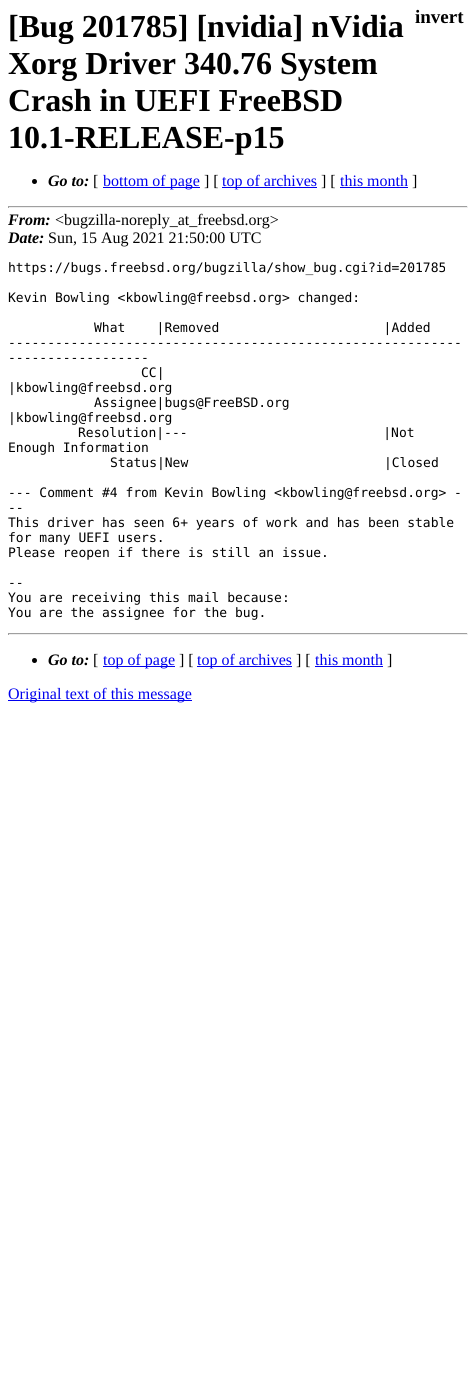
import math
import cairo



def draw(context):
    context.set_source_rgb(1, 1, 1)
    context.paint()
    context.set_source_rgb(0, 0, 0)
    context.arc(34.5, 181.5, 2.5, 0, 2 * math.pi)
    context.fill()
    context.set_source_rgb(0, 0, 238 / 255)
    context.rectangle(103, 187, 97, 1)
    context.fill()
    context.rectangle(222, 187, 95, 1)
    context.fill()
    context.rectangle(340, 187, 68, 1)
    context.fill()
    context.set_source_rgb(159 / 255, 159 / 255, 159 / 255)
    context.rectangle(8, 206, 460, 1)
    context.fill()
    context.set_source_rgb(238 / 255, 238 / 255, 238 / 255)
    context.rectangle(467, 206, 1, 2)
    context.fill()
    context.rectangle(8, 207, 460, 1)
    context.fill()
    context.set_source_rgb(159 / 255, 159 / 255, 159 / 255)
    context.rectangle(8, 206, 1, 2)
    context.fill()
    context.rectangle(8, 633, 460, 1)
    context.fill()
    context.set_source_rgb(238 / 255, 238 / 255, 238 / 255)
    context.rectangle(467, 633, 1, 2)
    context.fill()
    context.rectangle(8, 634, 460, 1)
    context.fill()
    context.set_source_rgb(159 / 255, 159 / 255, 159 / 255)
    context.rectangle(8, 633, 1, 2)
    context.fill()
    context.set_source_rgb(0, 0, 0)
    context.arc(34.5, 660.5, 2.5, 0, 2 * math.pi)
    context.fill()
    context.set_source_rgb(0, 0, 238 / 255)
    context.rectangle(103, 666, 72, 1)
    context.fill()
    context.rectangle(197, 666, 95, 1)
    context.fill()
    context.rectangle(315, 666, 68, 1)
    context.fill()
    context.rectangle(8, 700, 184, 1)
    context.fill()
    context.select_font_face("Liberation Serif", cairo.FontSlant.NORMAL, cairo.FontWeight.BOLD)
    context.set_font_size(32)
    context.set_source_rgb(0, 0, 0)
    context.move_to(8, 37)
    context.show_text("[Bug 201785] [nvidia] nVidia")
    context.move_to(8, 74)
    context.show_text("Xorg Driver 340.76 System")
    context.move_to(8, 111)
    context.show_text("Crash in UEFI FreeBSD")
    context.move_to(8, 148)
    context.show_text("10.1-RELEASE-p15")
    context.select_font_face("Liberation Serif", cairo.FontSlant.ITALIC, cairo.FontWeight.BOLD)
    context.set_font_size(16)
    context.move_to(48, 186)
    context.show_text("Go to:")
    context.select_font_face("Liberation Serif")
    context.move_to(93, 186)
    context.show_text("[")
    context.set_source_rgb(0, 0, 238 / 255)
    context.move_to(103, 186)
    context.show_text("bottom of page")
    context.set_source_rgb(0, 0, 0)
    context.move_to(204, 186)
    context.show_text("] [")
    context.set_source_rgb(0, 0, 238 / 255)
    context.move_to(222, 186)
    context.show_text("top of archives")
    context.set_source_rgb(0, 0, 0)
    context.move_to(321, 186)
    context.show_text("] [")
    context.set_source_rgb(0, 0, 238 / 255)
    context.move_to(340, 186)
    context.show_text("this month")
    context.set_source_rgb(0, 0, 0)
    context.move_to(412, 186)
    context.show_text("]")
    context.select_font_face("Liberation Serif", cairo.FontSlant.NORMAL, cairo.FontWeight.BOLD)
    context.set_font_size(19)
    context.move_to(415, 23)
    context.show_text("invert")
    context.select_font_face("Liberation Serif", cairo.FontSlant.ITALIC, cairo.FontWeight.BOLD)
    context.set_font_size(16)
    context.move_to(8, 225)
    context.show_text("From:")
    context.select_font_face("Liberation Serif")
    context.move_to(55, 225)
    context.show_text("<bugzilla-noreply_at_freebsd.org>")
    context.select_font_face("Liberation Serif", cairo.FontSlant.ITALIC, cairo.FontWeight.BOLD)
    context.move_to(8, 243)
    context.show_text("Date:")
    context.select_font_face("Liberation Serif")
    context.move_to(48, 243)
    context.show_text("Sun, 15 Aug 2021 21:50:00 UTC")
    context.select_font_face("DejaVu Sans Mono")
    context.set_font_size(13)
    context.move_to(8, 272)
    context.show_text("https://bugs.freebsd.org/bugzilla/show_bug.cgi?id=201785")
    context.move_to(8, 302)
    context.show_text("Kevin Bowling <kbowling@freebsd.org> changed:")
    context.move_to(94, 332)
    context.show_text("What    |Removed                     |Added")
    context.move_to(8, 347)
    context.show_text("----------------------------------------------------------")
    context.move_to(8, 362)
    context.show_text("------------------")
    context.move_to(141, 377)
    context.show_text("CC|")
    context.move_to(8, 392)
    context.show_text("|kbowling@freebsd.org")
    context.move_to(94, 407)
    context.show_text("Assignee|bugs@FreeBSD.org")
    context.move_to(8, 422)
    context.show_text("|kbowling@freebsd.org")
    context.move_to(78, 437)
    context.show_text("Resolution|---                         |Not")
    context.move_to(8, 452)
    context.show_text("Enough Information")
    context.move_to(110, 467)
    context.show_text("Status|New                         |Closed")
    context.move_to(8, 497)
    context.show_text("--- Comment #4 from Kevin Bowling <kbowling@freebsd.org> -")
    context.move_to(8, 512)
    context.show_text("--")
    context.move_to(8, 527)
    context.show_text("This driver has seen 6+ years of work and has been stable")
    context.move_to(8, 542)
    context.show_text("for many UEFI users.")
    context.move_to(8, 557)
    context.show_text("Please reopen if there is still an issue.")
    context.move_to(8, 587)
    context.show_text("--")
    context.move_to(8, 602)
    context.show_text("You are receiving this mail because:")
    context.move_to(8, 617)
    context.show_text("You are the assignee for the bug.")
    context.select_font_face("Liberation Serif", cairo.FontSlant.ITALIC, cairo.FontWeight.BOLD)
    context.set_font_size(16)
    context.move_to(48, 665)
    context.show_text("Go to:")
    context.select_font_face("Liberation Serif")
    context.move_to(93, 665)
    context.show_text("[")
    context.set_source_rgb(0, 0, 238 / 255)
    context.move_to(103, 665)
    context.show_text("top of page")
    context.set_source_rgb(0, 0, 0)
    context.move_to(179, 665)
    context.show_text("] [")
    context.set_source_rgb(0, 0, 238 / 255)
    context.move_to(197, 665)
    context.show_text("top of archives")
    context.set_source_rgb(0, 0, 0)
    context.move_to(296, 665)
    context.show_text("] [")
    context.set_source_rgb(0, 0, 238 / 255)
    context.move_to(315, 665)
    context.show_text("this month")
    context.set_source_rgb(0, 0, 0)
    context.move_to(387, 665)
    context.show_text("]")
    context.set_source_rgb(0, 0, 238 / 255)
    context.move_to(8, 699)
    context.show_text("Original text of this message")


surface = cairo.ImageSurface(cairo.Format.RGB24, 476, 1389)
context = cairo.Context(surface)
options = cairo.FontOptions()
options.set_hint_metrics(cairo.HintMetrics.OFF)
options.set_hint_style(cairo.HintStyle.NONE)
context.set_font_options(options)
context.set_miter_limit(4)
draw(context)
surface.write_to_png("out.png")
